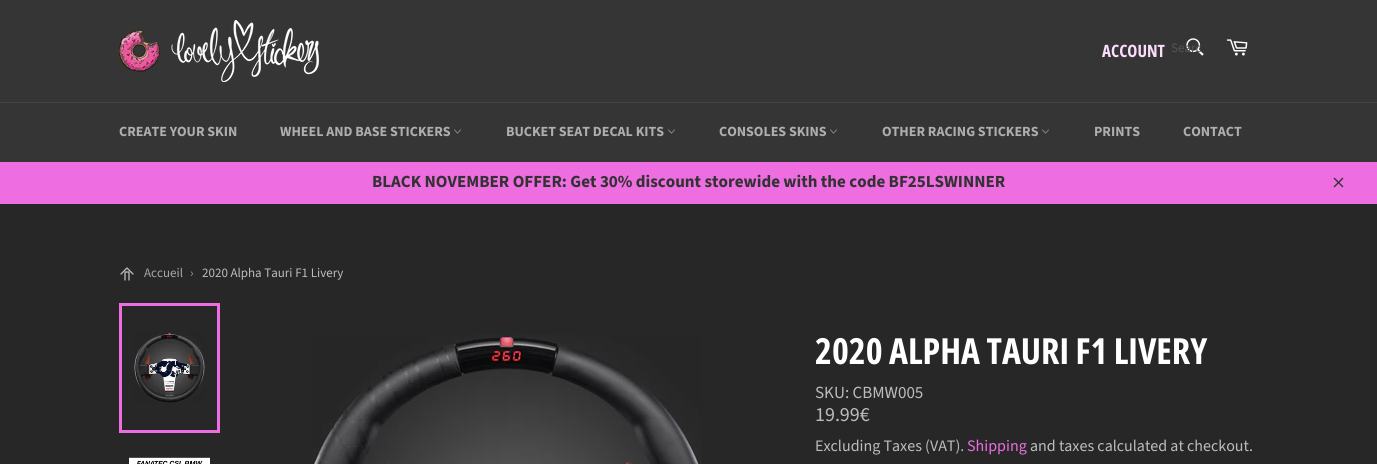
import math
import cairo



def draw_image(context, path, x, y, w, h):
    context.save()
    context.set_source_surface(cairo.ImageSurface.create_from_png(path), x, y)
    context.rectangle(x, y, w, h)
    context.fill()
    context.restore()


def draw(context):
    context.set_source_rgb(40 / 255, 39 / 255, 39 / 255)
    context.paint()
    context.set_source_rgb(53 / 255, 53 / 255, 53 / 255)
    context.rectangle(0, 0, 1377, 102)
    context.fill()
    draw_image(context, "images/1.png", 119, 20, 200, 62)
    draw_image(context, "images/2.png", 1186, 38, 18, 18)
    draw_image(context, "images/3.png", 1226, 39, 22, 17)
    context.rectangle(0, 103, 1377, 59)
    context.fill()
    context.set_source_rgb(66 / 255, 66 / 255, 66 / 255)
    context.rectangle(0, 102, 1377, 1)
    context.fill()
    draw_image(context, "images/4.png", 454, 129, 7, 5)
    draw_image(context, "images/4.png", 668, 129, 7, 5)
    draw_image(context, "images/4.png", 830, 129, 7, 5)
    draw_image(context, "images/4.png", 1042, 129, 7, 5)
    context.set_source_rgb(238 / 255, 109 / 255, 225 / 255)
    context.rectangle(0, 162, 1377, 42)
    context.fill()
    draw_image(context, "images/5.png", 1333, 177, 11, 11)
    draw_image(context, "images/6.png", 120, 267, 14, 14)
    draw_image(context, "images/7.png", 134, 332, 71, 71)
    context.rectangle(120.5, 304.5, 98, 127)
    context.set_line_width(3)
    context.stroke()
    draw_image(context, "images/8.png", 129, 457, 81, 7)
    draw_image(context, "images/9.png", 313, 334, 389, 130)
    context.select_font_face("Open Sans Condensed", cairo.FontSlant.NORMAL, cairo.FontWeight.BOLD)
    context.set_font_size(17)
    context.set_source_rgb(252 / 255, 221 / 255, 252 / 255)
    context.move_to(1102, 57)
    context.show_text("ACCOUNT")
    context.select_font_face("Source Sans Pro")
    context.set_font_size(13)
    context.set_source_rgb(84 / 255, 84 / 255, 84 / 255)
    context.move_to(1171, 52)
    context.show_text("Searc")
    context.select_font_face("Source Sans Pro", cairo.FontSlant.NORMAL, cairo.FontWeight.BOLD)
    context.set_font_size(14)
    context.set_source_rgb(174 / 255, 174 / 255, 174 / 255)
    context.move_to(119, 136)
    context.show_text("CREATE YOUR SKIN")
    context.move_to(280, 136)
    context.show_text("WHEEL AND BASE STICKERS")
    context.move_to(506, 136)
    context.show_text("BUCKET SEAT DECAL KITS")
    context.move_to(719, 136)
    context.show_text("CONSOLES SKINS")
    context.move_to(882, 136)
    context.show_text("OTHER RACING STICKERS")
    context.move_to(1094, 136)
    context.show_text("PRINTS")
    context.move_to(1183, 136)
    context.show_text("CONTACT")
    context.set_font_size(17)
    context.set_source_rgb(51 / 255, 50 / 255, 50 / 255)
    context.move_to(372, 187)
    context.show_text("BLACK NOVEMBER OFFER: Get 30% discount storewide with the code BF25LSWINNER")
    context.select_font_face("Source Sans Pro")
    context.set_font_size(13)
    context.set_source_rgb(166 / 255, 166 / 255, 166 / 255)
    context.move_to(144, 277)
    context.show_text("Accueil")
    context.set_source_rgb(153 / 255, 153 / 255, 153 / 255)
    context.move_to(190, 277)
    context.show_text("›")
    context.set_source_rgb(188 / 255, 188 / 255, 188 / 255)
    context.move_to(202, 277)
    context.show_text("2020 Alpha Tauri F1 Livery")
    context.select_font_face("Open Sans Condensed", cairo.FontSlant.NORMAL, cairo.FontWeight.BOLD)
    context.set_font_size(36)
    context.set_source_rgb(1, 1, 1)
    context.move_to(815, 364)
    context.show_text("2020 ALPHA TAURI F1 LIVERY")
    context.select_font_face("Source Sans Pro")
    context.set_font_size(17)
    context.set_source_rgb(188 / 255, 188 / 255, 188 / 255)
    context.move_to(815, 398)
    context.show_text("SKU: CBMW005")
    context.set_font_size(20)
    context.move_to(815, 421)
    context.show_text("19.99€")
    context.set_font_size(16)
    context.move_to(815, 451)
    context.show_text("Excluding Taxes (VAT).")
    context.set_source_rgb(238 / 255, 109 / 255, 225 / 255)
    context.move_to(967, 451)
    context.show_text("Shipping")
    context.set_source_rgb(188 / 255, 188 / 255, 188 / 255)
    context.move_to(1030, 451)
    context.show_text("and taxes calculated at checkout.")


surface = cairo.ImageSurface(cairo.Format.RGB24, 1377, 464)
context = cairo.Context(surface)
options = cairo.FontOptions()
options.set_hint_metrics(cairo.HintMetrics.OFF)
options.set_hint_style(cairo.HintStyle.NONE)
context.set_font_options(options)
context.set_miter_limit(4)
draw(context)
surface.write_to_png("out.png")
